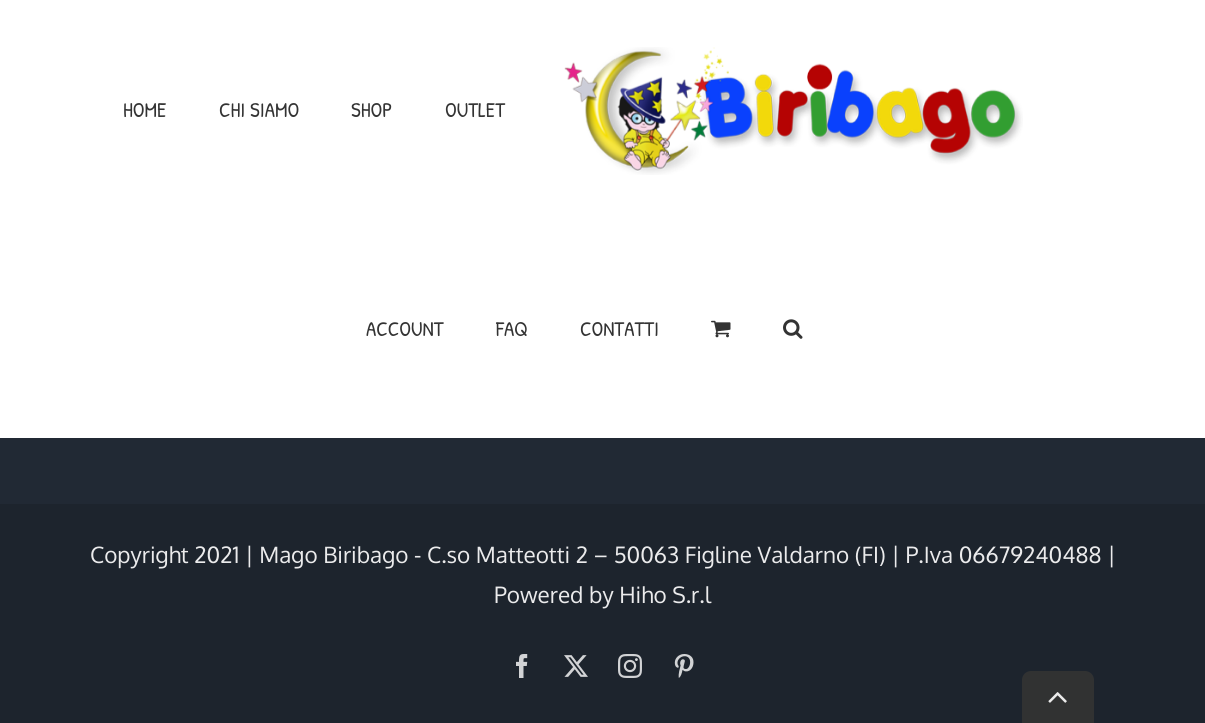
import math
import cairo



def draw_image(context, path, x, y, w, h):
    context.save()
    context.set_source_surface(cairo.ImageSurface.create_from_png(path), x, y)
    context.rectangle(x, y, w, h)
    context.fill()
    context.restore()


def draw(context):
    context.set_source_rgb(33 / 255, 41 / 255, 52 / 255)
    context.paint()
    context.set_source_rgb(1, 1, 1)
    context.rectangle(0, 0, 1205, 438)
    context.fill()
    draw_image(context, "images/1.png", 564, 47, 459, 128)
    draw_image(context, "images/2.png", 711, 320, 20, 18)
    draw_image(context, "images/3.png", 783, 319, 20, 20)
    context.set_source_rgb(29 / 255, 36 / 255, 45 / 255)
    context.rectangle(0, 504, 1205, 219)
    context.fill()
    draw_image(context, "images/4.png", 516, 654, 12, 24)
    draw_image(context, "images/5.png", 564, 655, 24, 22)
    draw_image(context, "images/6.png", 618, 654, 24, 24)
    draw_image(context, "images/7.png", 674, 654, 20, 24)
    context.set_source_rgb(49 / 255, 50 / 255, 50 / 255)
    context.new_path()
    context.move_to(1031, 671)
    context.line_to(1085, 671)
    context.curve_to(1090, 671, 1094, 675, 1094, 680)
    context.line_to(1094, 723)
    context.line_to(1022, 723)
    context.line_to(1022, 680)
    context.curve_to(1022, 675, 1026, 671, 1031, 671)
    context.close_path()
    context.fill()
    draw_image(context, "images/8.png", 1048, 692, 19, 11)
    context.select_font_face("Patrick Hand")
    context.set_font_size(21)
    context.set_source_rgb(51 / 255, 51 / 255, 51 / 255)
    context.move_to(123, 117)
    context.show_text("HOME")
    context.move_to(219, 117)
    context.show_text("CHI SIAMO")
    context.move_to(351, 117)
    context.show_text("SHOP")
    context.move_to(445, 117)
    context.show_text("OUTLET")
    context.move_to(366, 336)
    context.show_text("ACCOUNT")
    context.move_to(496, 336)
    context.show_text("FAQ")
    context.move_to(580, 336)
    context.show_text("CONTATTI")
    context.select_font_face("Oxygen")
    context.set_font_size(22.5)
    context.set_source_rgb(235 / 255, 235 / 255, 236 / 255)
    context.move_to(90, 563)
    context.show_text("Copyright 2021 | Mago Biribago - C.so Matteotti 2 – 50063 Figline Valdarno (FI) | P.Iva 06679240488 |")
    context.move_to(494, 603)
    context.show_text("Powered by Hiho S.r.l")


surface = cairo.ImageSurface(cairo.Format.RGB24, 1205, 723)
context = cairo.Context(surface)
options = cairo.FontOptions()
options.set_hint_metrics(cairo.HintMetrics.OFF)
options.set_hint_style(cairo.HintStyle.NONE)
context.set_font_options(options)
context.set_miter_limit(4)
draw(context)
surface.write_to_png("out.png")
